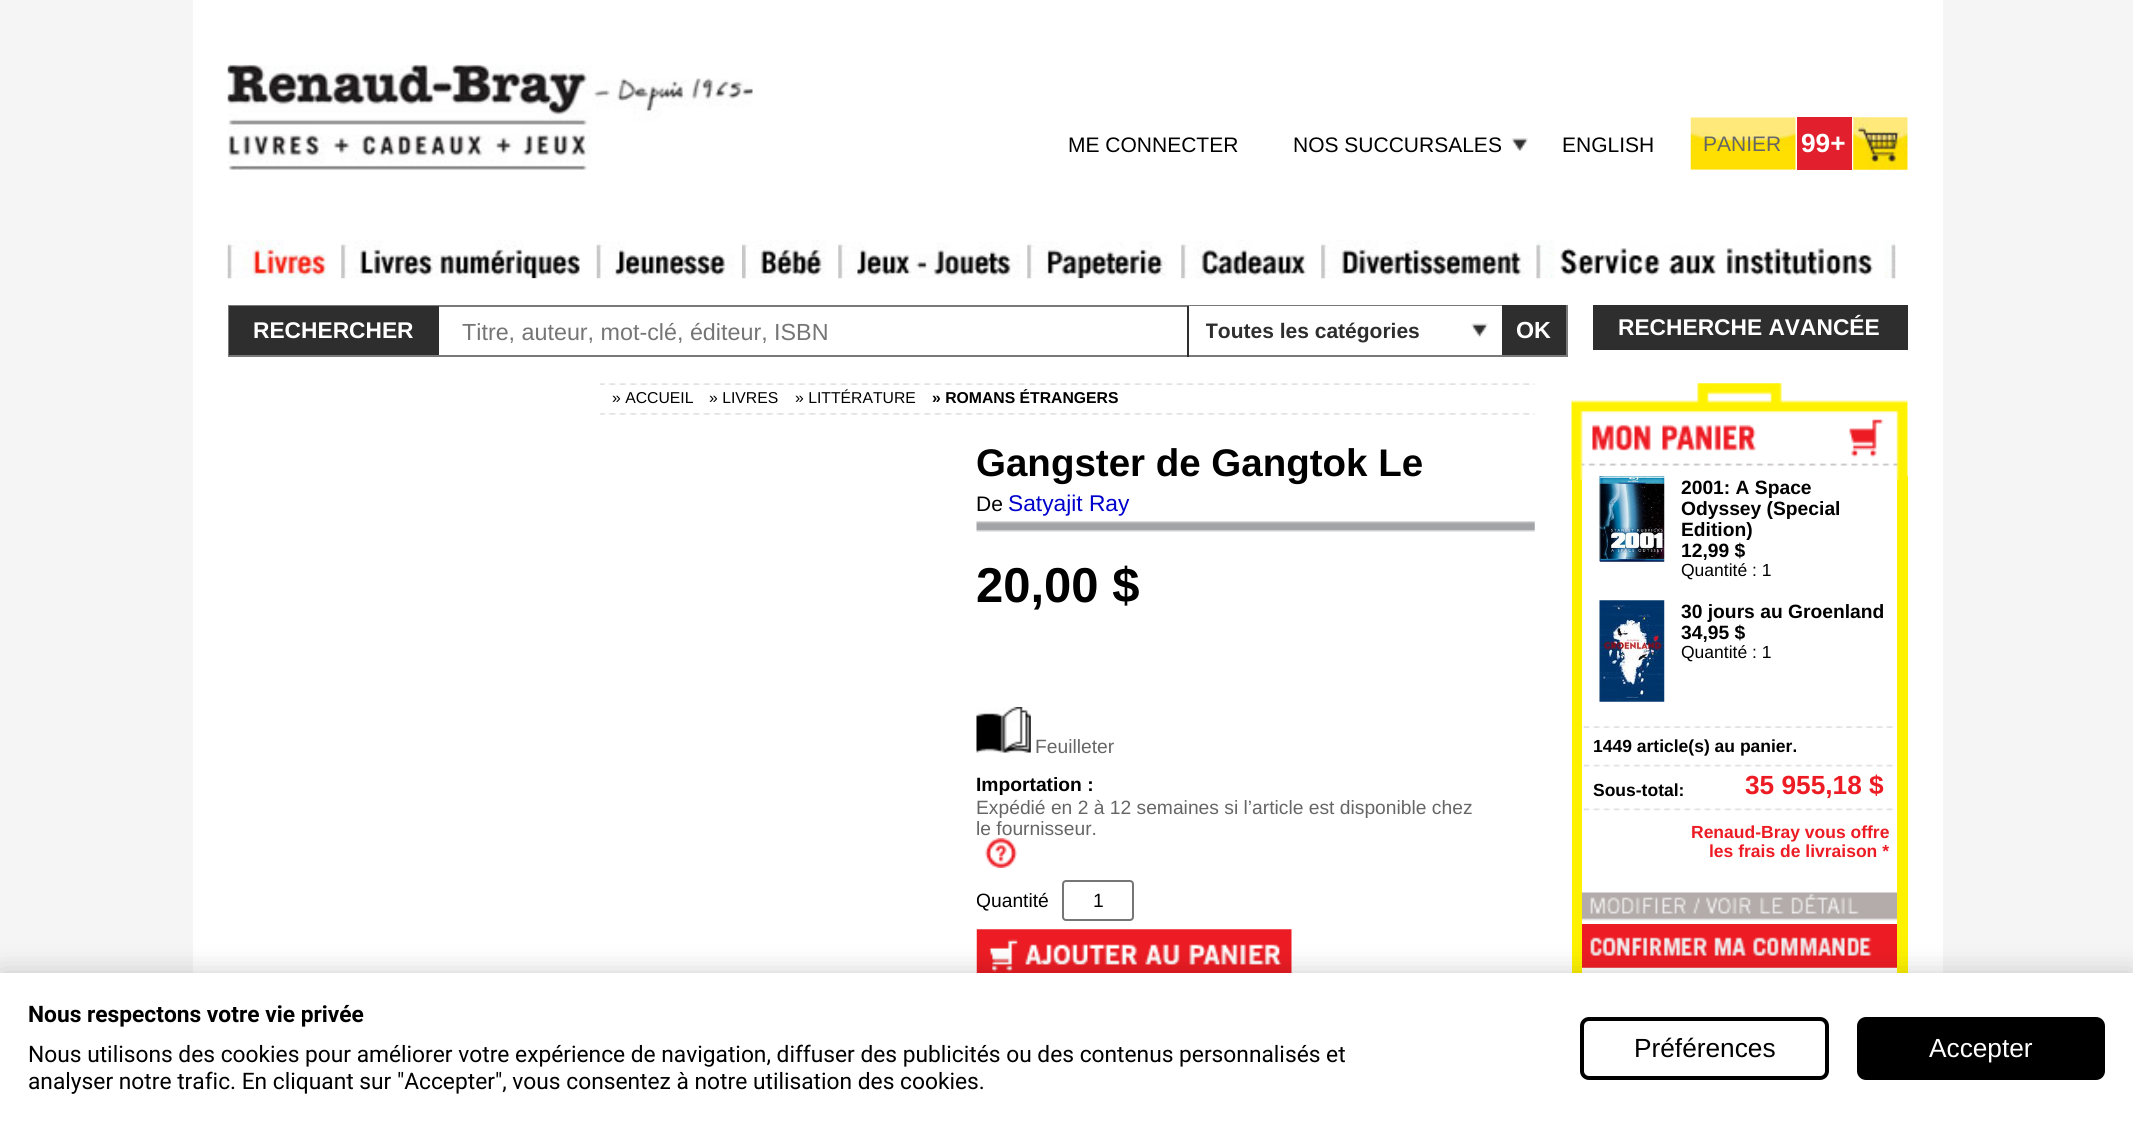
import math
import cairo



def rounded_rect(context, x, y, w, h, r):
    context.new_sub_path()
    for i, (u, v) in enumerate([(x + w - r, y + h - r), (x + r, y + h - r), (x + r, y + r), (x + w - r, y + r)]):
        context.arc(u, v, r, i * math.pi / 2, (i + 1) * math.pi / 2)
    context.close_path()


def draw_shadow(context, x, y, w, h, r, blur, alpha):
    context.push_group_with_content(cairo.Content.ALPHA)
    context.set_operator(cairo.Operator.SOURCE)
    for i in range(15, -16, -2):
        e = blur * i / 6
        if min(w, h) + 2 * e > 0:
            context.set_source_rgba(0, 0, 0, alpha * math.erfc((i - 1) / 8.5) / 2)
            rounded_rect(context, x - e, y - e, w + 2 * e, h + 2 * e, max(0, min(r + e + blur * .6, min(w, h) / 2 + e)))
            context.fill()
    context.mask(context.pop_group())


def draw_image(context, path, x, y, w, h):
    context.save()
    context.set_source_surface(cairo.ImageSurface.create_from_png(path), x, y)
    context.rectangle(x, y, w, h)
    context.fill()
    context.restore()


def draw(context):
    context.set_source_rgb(245 / 255, 245 / 255, 245 / 255)
    context.paint()
    context.set_source_rgb(1, 1, 1)
    context.rectangle(193, 0, 1750, 973)
    context.fill()
    draw_image(context, "images/1.png", 227, 64, 526, 106)
    draw_image(context, "images/2.png", 1511, 138, 17, 13)
    draw_image(context, "images/3.png", 1853, 117, 55, 53)
    draw_image(context, "images/4.png", 1690, 117, 106, 53)
    context.set_source_rgb(226 / 255, 31 / 255, 45 / 255)
    context.rectangle(1797, 117, 55, 53)
    context.fill()
    draw_image(context, "images/20.png", 976, 929, 316, 44)
    context.set_source_rgb(254 / 255, 242 / 255, 0)
    context.rectangle(1897, 476, 11, 497)
    context.fill()
    context.rectangle(1572, 479, 10, 494)
    context.fill()
    draw_image(context, "images/28.png", 1582, 924, 315, 44)
    context.set_source_rgb(0, 0, 0)
    draw_shadow(context, 0, 973, 2133, 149, 0, 14, 0.2)
    context.set_source_rgb(1, 1, 1)
    context.rectangle(0, 973, 2133, 148)
    context.fill()
    rounded_rect(context, 1582, 1019, 245, 59, 7)
    context.set_source_rgb(0, 0, 0)
    context.set_line_width(4)
    context.stroke()
    rounded_rect(context, 1859, 1019, 244, 59, 7)
    context.fill_preserve()
    context.stroke()
    draw_image(context, "images/5.png", 227, 240, 99, 39)
    draw_image(context, "images/6.png", 341, 240, 239, 39)
    draw_image(context, "images/7.png", 596, 241, 139, 38)
    draw_image(context, "images/8.png", 742, 240, 84, 39)
    draw_image(context, "images/9.png", 838, 242, 182, 37)
    draw_image(context, "images/10.png", 1027, 241, 140, 38)
    draw_image(context, "images/11.png", 1181, 240, 126, 39)
    draw_image(context, "images/12.png", 1321, 240, 210, 39)
    draw_image(context, "images/13.png", 1536, 240, 360, 39)
    context.rectangle(229, 306, 1338, 50)
    context.set_source_rgb(121 / 255, 121 / 255, 121 / 255)
    context.set_line_width(2)
    context.stroke()
    context.set_source_rgb(46 / 255, 46 / 255, 46 / 255)
    context.rectangle(229, 306, 210, 49)
    context.fill()
    context.set_source_rgb(1, 1, 1)
    context.rectangle(1189, 306, 313, 1)
    context.fill()
    context.set_source_rgb(46 / 255, 46 / 255, 46 / 255)
    context.rectangle(1187, 306, 2, 51)
    context.fill()
    draw_image(context, "images/14.png", 1471, 323, 17, 14)
    context.rectangle(1502, 305, 64, 50)
    context.fill()
    context.rectangle(1593, 305, 315, 45)
    context.fill()
    draw_image(context, "images/15.png", 600, 383, 935, 2)
    draw_image(context, "images/16.png", 600, 413, 935, 2)
    draw_image(context, "images/17.png", 976, 521, 559, 11)
    draw_image(context, "images/18.png", 976, 707, 55, 46)
    draw_image(context, "images/19.png", 985, 838, 32, 30)
    rounded_rect(context, 1063, 881, 70, 39, 3)
    context.set_source_rgb(118 / 255, 118 / 255, 118 / 255)
    context.stroke()
    draw_image(context, "images/21.png", 1571, 383, 337, 97)
    draw_image(context, "images/22.png", 1599, 476, 66, 86)
    draw_image(context, "images/23.png", 1599, 600, 66, 102)
    draw_image(context, "images/24.png", 1583, 726, 311, 2)
    draw_image(context, "images/25.png", 1583, 764, 311, 3)
    draw_image(context, "images/26.png", 1583, 808, 311, 3)
    draw_image(context, "images/27.png", 1582, 892, 315, 29)
    context.select_font_face("Liberation Sans")
    context.set_font_size(21)
    context.set_source_rgb(0, 0, 0)
    context.move_to(1068, 152)
    context.show_text("ME CONNECTER")
    context.move_to(1293, 152)
    context.show_text("NOS SUCCURSALES")
    context.move_to(1562, 152)
    context.show_text("ENGLISH")
    context.set_source_rgb(102 / 255, 102 / 255, 102 / 255)
    context.move_to(1703, 151)
    context.show_text("PANIER")
    context.select_font_face("Liberation Sans", cairo.FontSlant.NORMAL, cairo.FontWeight.BOLD)
    context.set_font_size(26.25)
    context.set_source_rgb(1, 1, 1)
    context.move_to(1801, 152)
    context.show_text("99+")
    context.select_font_face("Roboto", cairo.FontSlant.NORMAL, cairo.FontWeight.BOLD)
    context.set_font_size(22.75)
    context.set_source_rgb(0, 0, 0)
    context.move_to(28, 1022)
    context.show_text("Nous respectons votre vie privée")
    context.select_font_face("Roboto")
    context.move_to(28, 1062)
    context.show_text("Nous utilisons des cookies pour améliorer votre expérience de navigation, diffuser des publicités ou des contenus personnalisés et")
    context.move_to(28, 1089)
    context.show_text("analyser notre trafic. En cliquant sur \"Accepter\", vous consentez à notre utilisation des cookies.")
    context.select_font_face("Liberation Sans")
    context.set_font_size(26.25)
    context.move_to(1634, 1057)
    context.show_text("Préférences")
    context.set_source_rgb(1, 1, 1)
    context.move_to(1929, 1057)
    context.show_text("Accepter")
    context.select_font_face("Liberation Sans", cairo.FontSlant.NORMAL, cairo.FontWeight.BOLD)
    context.set_font_size(22.75)
    context.move_to(253, 338)
    context.show_text("RECHERCHER")
    context.select_font_face("Liberation Sans")
    context.set_font_size(23.3)
    context.set_source_rgb(117 / 255, 117 / 255, 117 / 255)
    context.move_to(462, 340)
    context.show_text("Titre, auteur, mot-clé, éditeur, ISBN")
    context.save()
    context.rectangle(1206, 319, 269, 24)
    context.clip()
    context.select_font_face("Liberation Sans", cairo.FontSlant.NORMAL, cairo.FontWeight.BOLD)
    context.set_font_size(21)
    context.set_source_rgb(46 / 255, 46 / 255, 46 / 255)
    context.move_to(1205, 338)
    context.show_text("Toutes les catégories")
    context.restore()
    context.select_font_face("Liberation Sans", cairo.FontSlant.NORMAL, cairo.FontWeight.BOLD)
    context.set_source_rgb(1, 1, 1)
    context.move_to(1516, 338)
    context.show_text("OK")
    context.set_font_size(22.75)
    context.move_to(1618, 335)
    context.show_text("RECHERCHE AVANCÉE")
    context.select_font_face("Liberation Sans")
    context.set_font_size(15.75)
    context.set_source_rgb(0, 0, 0)
    context.move_to(612, 403)
    context.show_text("» ACCUEIL")
    context.move_to(709, 403)
    context.show_text("» LIVRES")
    context.move_to(795, 403)
    context.show_text("» LITTÉRATURE")
    context.select_font_face("Liberation Sans", cairo.FontSlant.NORMAL, cairo.FontWeight.BOLD)
    context.move_to(932, 403)
    context.show_text("» ROMANS ÉTRANGERS")
    context.set_font_size(38.5)
    context.move_to(976, 476)
    context.show_text("Gangster de Gangtok Le")
    context.select_font_face("Liberation Sans")
    context.set_font_size(21)
    context.move_to(976, 511)
    context.show_text("De")
    context.set_font_size(22.75)
    context.set_source_rgb(0, 0, 204 / 255)
    context.move_to(1008, 511)
    context.show_text("Satyajit Ray")
    context.select_font_face("Liberation Sans", cairo.FontSlant.NORMAL, cairo.FontWeight.BOLD)
    context.set_font_size(49)
    context.set_source_rgb(0, 0, 0)
    context.move_to(976, 602)
    context.show_text("20,00 $")
    context.select_font_face("Liberation Sans")
    context.set_font_size(19.25)
    context.set_source_rgb(102 / 255, 102 / 255, 102 / 255)
    context.move_to(1035, 753)
    context.show_text("Feuilleter")
    context.select_font_face("Liberation Sans", cairo.FontSlant.NORMAL, cairo.FontWeight.BOLD)
    context.set_source_rgb(0, 0, 0)
    context.move_to(976, 791)
    context.show_text("Importation :")
    context.select_font_face("Liberation Sans")
    context.set_source_rgb(102 / 255, 102 / 255, 102 / 255)
    context.move_to(976, 814)
    context.show_text("Expédié en 2 à 12 semaines si l’article est disponible chez")
    context.move_to(976, 835)
    context.show_text("le fournisseur.")
    context.save()
    context.rectangle(977, 872, 315, 122)
    context.clip()
    context.set_source_rgb(0, 0, 0)
    context.move_to(976, 907)
    context.show_text("Quantité")
    context.restore()
    context.set_source_rgb(0, 0, 0)
    context.move_to(1093, 907)
    context.show_text("1")
    context.select_font_face("Liberation Sans", cairo.FontSlant.NORMAL, cairo.FontWeight.BOLD)
    context.move_to(1681, 494)
    context.show_text("2001: A Space")
    context.move_to(1681, 515)
    context.show_text("Odyssey (Special")
    context.move_to(1681, 536)
    context.show_text("Edition)")
    context.move_to(1681, 557)
    context.show_text("12,99 $")
    context.select_font_face("Liberation Sans")
    context.set_font_size(17.5)
    context.move_to(1681, 576)
    context.show_text("Quantité : 1")
    context.select_font_face("Liberation Sans", cairo.FontSlant.NORMAL, cairo.FontWeight.BOLD)
    context.set_font_size(19.25)
    context.move_to(1681, 618)
    context.show_text("30 jours au Groenland")
    context.move_to(1681, 639)
    context.show_text("34,95 $")
    context.select_font_face("Liberation Sans")
    context.set_font_size(17.5)
    context.move_to(1681, 658)
    context.show_text("Quantité : 1")
    context.select_font_face("Liberation Sans", cairo.FontSlant.NORMAL, cairo.FontWeight.BOLD)
    context.move_to(1593, 752)
    context.show_text("1449 article(s) au panier.")
    context.move_to(1593, 796)
    context.show_text("Sous-total:")
    context.set_font_size(26.25)
    context.set_source_rgb(237 / 255, 28 / 255, 36 / 255)
    context.move_to(1745, 794)
    context.show_text("35 955,18 $")
    context.set_font_size(17.5)
    context.move_to(1691, 838)
    context.show_text("Renaud-Bray vous offre")
    context.move_to(1709, 857)
    context.show_text("les frais de livraison *")


surface = cairo.ImageSurface(cairo.Format.RGB24, 2133, 1121)
context = cairo.Context(surface)
options = cairo.FontOptions()
options.set_hint_metrics(cairo.HintMetrics.OFF)
options.set_hint_style(cairo.HintStyle.NONE)
context.set_font_options(options)
context.set_miter_limit(4)
draw(context)
surface.write_to_png("out.png")
